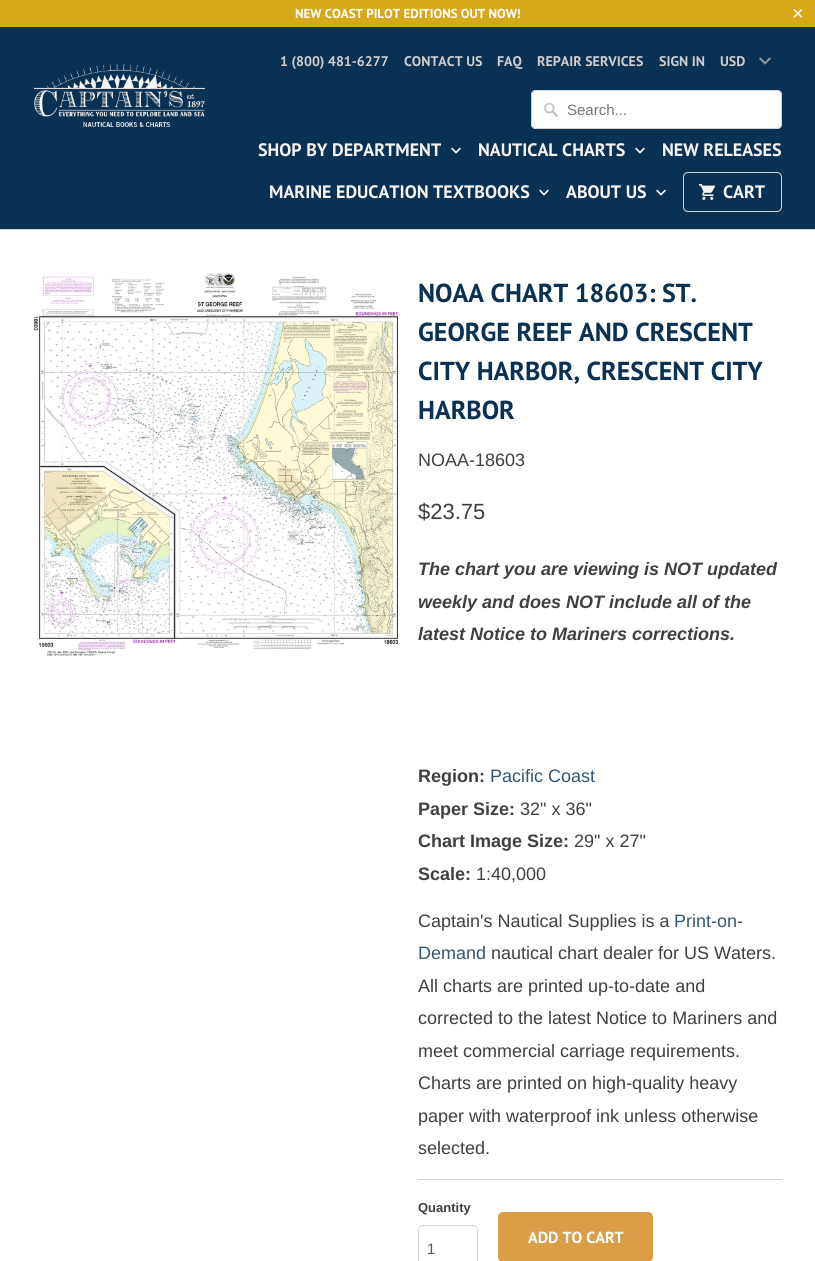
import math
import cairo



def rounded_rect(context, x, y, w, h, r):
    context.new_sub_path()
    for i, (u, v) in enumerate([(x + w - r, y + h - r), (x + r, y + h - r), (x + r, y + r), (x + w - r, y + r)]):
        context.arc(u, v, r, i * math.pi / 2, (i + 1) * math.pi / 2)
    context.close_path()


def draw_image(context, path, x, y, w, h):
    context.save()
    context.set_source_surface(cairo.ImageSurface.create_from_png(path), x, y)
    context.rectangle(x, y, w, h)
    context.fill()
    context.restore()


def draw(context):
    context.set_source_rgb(1, 1, 1)
    context.paint()
    context.set_source_rgb(216 / 255, 168 / 255, 27 / 255)
    context.rectangle(0, 0, 815, 27)
    context.fill()
    context.set_source_rgb(9 / 255, 49 / 255, 84 / 255)
    context.rectangle(0, 27, 815, 202)
    context.fill()
    context.set_source_rgb(211 / 255, 211 / 255, 211 / 255)
    context.rectangle(0, 229, 815, 1)
    context.fill()
    draw_image(context, "images/1.png", 34, 64, 171, 63)
    draw_image(context, "images/2.png", 759, 57, 12, 8)
    context.set_source_rgb(1, 1, 1)
    rounded_rect(context, 531, 90, 251, 39, 5)
    context.fill()
    draw_image(context, "images/3.png", 544, 103, 14, 14)
    rounded_rect(context, 531.5, 90.5, 250, 38, 4.5)
    context.set_source_rgb(211 / 255, 211 / 255, 211 / 255)
    context.set_line_width(1)
    context.stroke()
    draw_image(context, "images/4.png", 451, 147, 10, 7)
    draw_image(context, "images/4.png", 635, 147, 10, 7)
    draw_image(context, "images/4.png", 539, 189, 10, 7)
    draw_image(context, "images/4.png", 656, 189, 10, 7)
    rounded_rect(context, 683.5, 172.5, 98, 39, 4.5)
    context.stroke()
    draw_image(context, "images/5.png", 699, 184, 16, 16)
    draw_image(context, "images/6.png", 34, 273, 364, 383)
    context.rectangle(418, 1179, 364, 1)
    context.fill()
    rounded_rect(context, 418.5, 1225.5, 59, 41, 4.5)
    context.stroke()
    context.set_source_rgb(219 / 255, 157 / 255, 71 / 255)
    rounded_rect(context, 498, 1212, 155, 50, 5)
    context.fill()
    context.select_font_face("PT Sans", cairo.FontSlant.NORMAL, cairo.FontWeight.BOLD)
    context.set_font_size(13)
    context.set_source_rgb(1, 1, 1)
    context.move_to(295, 18)
    context.show_text("NEW COAST PILOT EDITIONS OUT NOW!")
    context.select_font_face("Liberation Sans")
    context.set_font_size(20)
    context.move_to(792, 20)
    context.show_text("×")
    context.select_font_face("PT Sans", cairo.FontSlant.NORMAL, cairo.FontWeight.BOLD)
    context.set_font_size(14)
    context.set_source_rgb(205 / 255, 205 / 255, 205 / 255)
    context.move_to(280, 66)
    context.show_text("1 (800) 481-6277")
    context.move_to(404, 66)
    context.show_text("CONTACT US")
    context.move_to(497, 66)
    context.show_text("FAQ")
    context.move_to(537, 66)
    context.show_text("REPAIR SERVICES")
    context.move_to(659, 66)
    context.show_text("SIGN IN")
    context.move_to(720, 66)
    context.show_text("USD")
    context.select_font_face("Liberation Sans")
    context.set_font_size(15)
    context.set_source_rgb(117 / 255, 117 / 255, 117 / 255)
    context.move_to(567, 115)
    context.show_text("Search...")
    context.select_font_face("PT Sans", cairo.FontSlant.NORMAL, cairo.FontWeight.BOLD)
    context.set_font_size(18)
    context.set_source_rgb(246 / 255, 244 / 255, 243 / 255)
    context.move_to(258, 156)
    context.show_text("SHOP BY DEPARTMENT")
    context.move_to(478, 156)
    context.show_text("NAUTICAL CHARTS")
    context.move_to(662, 156)
    context.show_text("NEW RELEASES")
    context.move_to(269, 198)
    context.show_text("MARINE EDUCATION TEXTBOOKS")
    context.move_to(566, 198)
    context.show_text("ABOUT US")
    context.move_to(723, 198)
    context.show_text("CART")
    context.set_font_size(26)
    context.set_source_rgb(9 / 255, 49 / 255, 84 / 255)
    context.move_to(418, 302)
    context.show_text("NOAA CHART 18603: ST.")
    context.move_to(418, 341)
    context.show_text("GEORGE REEF AND CRESCENT")
    context.move_to(418, 380)
    context.show_text("CITY HARBOR, CRESCENT CITY")
    context.move_to(418, 419)
    context.show_text("HARBOR")
    context.select_font_face("Liberation Sans")
    context.set_font_size(18)
    context.set_source_rgb(64 / 255, 64 / 255, 64 / 255)
    context.move_to(418, 466)
    context.show_text("NOAA-18603")
    context.set_font_size(22)
    context.move_to(418, 519)
    context.show_text("$23.75")
    context.select_font_face("Liberation Sans", cairo.FontSlant.ITALIC, cairo.FontWeight.BOLD)
    context.set_font_size(18)
    context.move_to(418, 575)
    context.show_text("The chart you are viewing is NOT updated")
    context.move_to(418, 608)
    context.show_text("weekly and does NOT include all of the")
    context.move_to(418, 640)
    context.show_text("latest Notice to Mariners corrections.")
    context.select_font_face("Liberation Sans", cairo.FontSlant.NORMAL, cairo.FontWeight.BOLD)
    context.move_to(418, 782)
    context.show_text("Region:")
    context.select_font_face("Liberation Sans")
    context.set_source_rgb(53 / 255, 86 / 255, 115 / 255)
    context.move_to(490, 782)
    context.show_text("Pacific Coast")
    context.select_font_face("Liberation Sans", cairo.FontSlant.NORMAL, cairo.FontWeight.BOLD)
    context.set_source_rgb(64 / 255, 64 / 255, 64 / 255)
    context.move_to(418, 815)
    context.show_text("Paper Size:")
    context.select_font_face("Liberation Sans")
    context.move_to(520, 815)
    context.show_text("32\" x 36\"")
    context.select_font_face("Liberation Sans", cairo.FontSlant.NORMAL, cairo.FontWeight.BOLD)
    context.move_to(418, 847)
    context.show_text("Chart Image Size:")
    context.select_font_face("Liberation Sans")
    context.move_to(574, 847)
    context.show_text("29\" x 27\"")
    context.select_font_face("Liberation Sans", cairo.FontSlant.NORMAL, cairo.FontWeight.BOLD)
    context.move_to(418, 880)
    context.show_text("Scale:")
    context.select_font_face("Liberation Sans")
    context.move_to(476, 880)
    context.show_text("1:40,000")
    context.move_to(418, 927)
    context.show_text("Captain's Nautical Supplies is a")
    context.set_source_rgb(53 / 255, 86 / 255, 115 / 255)
    context.move_to(674, 927)
    context.show_text("Print-on-")
    context.move_to(418, 959)
    context.show_text("Demand")
    context.set_source_rgb(64 / 255, 64 / 255, 64 / 255)
    context.move_to(491, 959)
    context.show_text("nautical chart dealer for US Waters.")
    context.move_to(418, 992)
    context.show_text("All charts are printed up-to-date and")
    context.move_to(418, 1024)
    context.show_text("corrected to the latest Notice to Mariners and")
    context.move_to(418, 1057)
    context.show_text("meet commercial carriage requirements.")
    context.move_to(418, 1089)
    context.show_text("Charts are printed on high-quality heavy")
    context.move_to(418, 1122)
    context.show_text("paper with waterproof ink unless otherwise")
    context.move_to(418, 1154)
    context.show_text("selected.")
    context.select_font_face("Liberation Sans", cairo.FontSlant.NORMAL, cairo.FontWeight.BOLD)
    context.set_font_size(13)
    context.move_to(418, 1212)
    context.show_text("Quantity")
    context.select_font_face("Liberation Sans")
    context.set_font_size(15)
    context.set_source_rgb(81 / 255, 89 / 255, 93 / 255)
    context.move_to(427, 1254)
    context.show_text("1")
    context.select_font_face("PT Sans", cairo.FontSlant.NORMAL, cairo.FontWeight.BOLD)
    context.set_font_size(16)
    context.set_source_rgb(1, 1, 1)
    context.move_to(528, 1243)
    context.show_text("ADD TO CART")


surface = cairo.ImageSurface(cairo.Format.RGB24, 815, 1261)
context = cairo.Context(surface)
options = cairo.FontOptions()
options.set_hint_metrics(cairo.HintMetrics.OFF)
options.set_hint_style(cairo.HintStyle.NONE)
context.set_font_options(options)
context.set_miter_limit(4)
draw(context)
surface.write_to_png("out.png")
